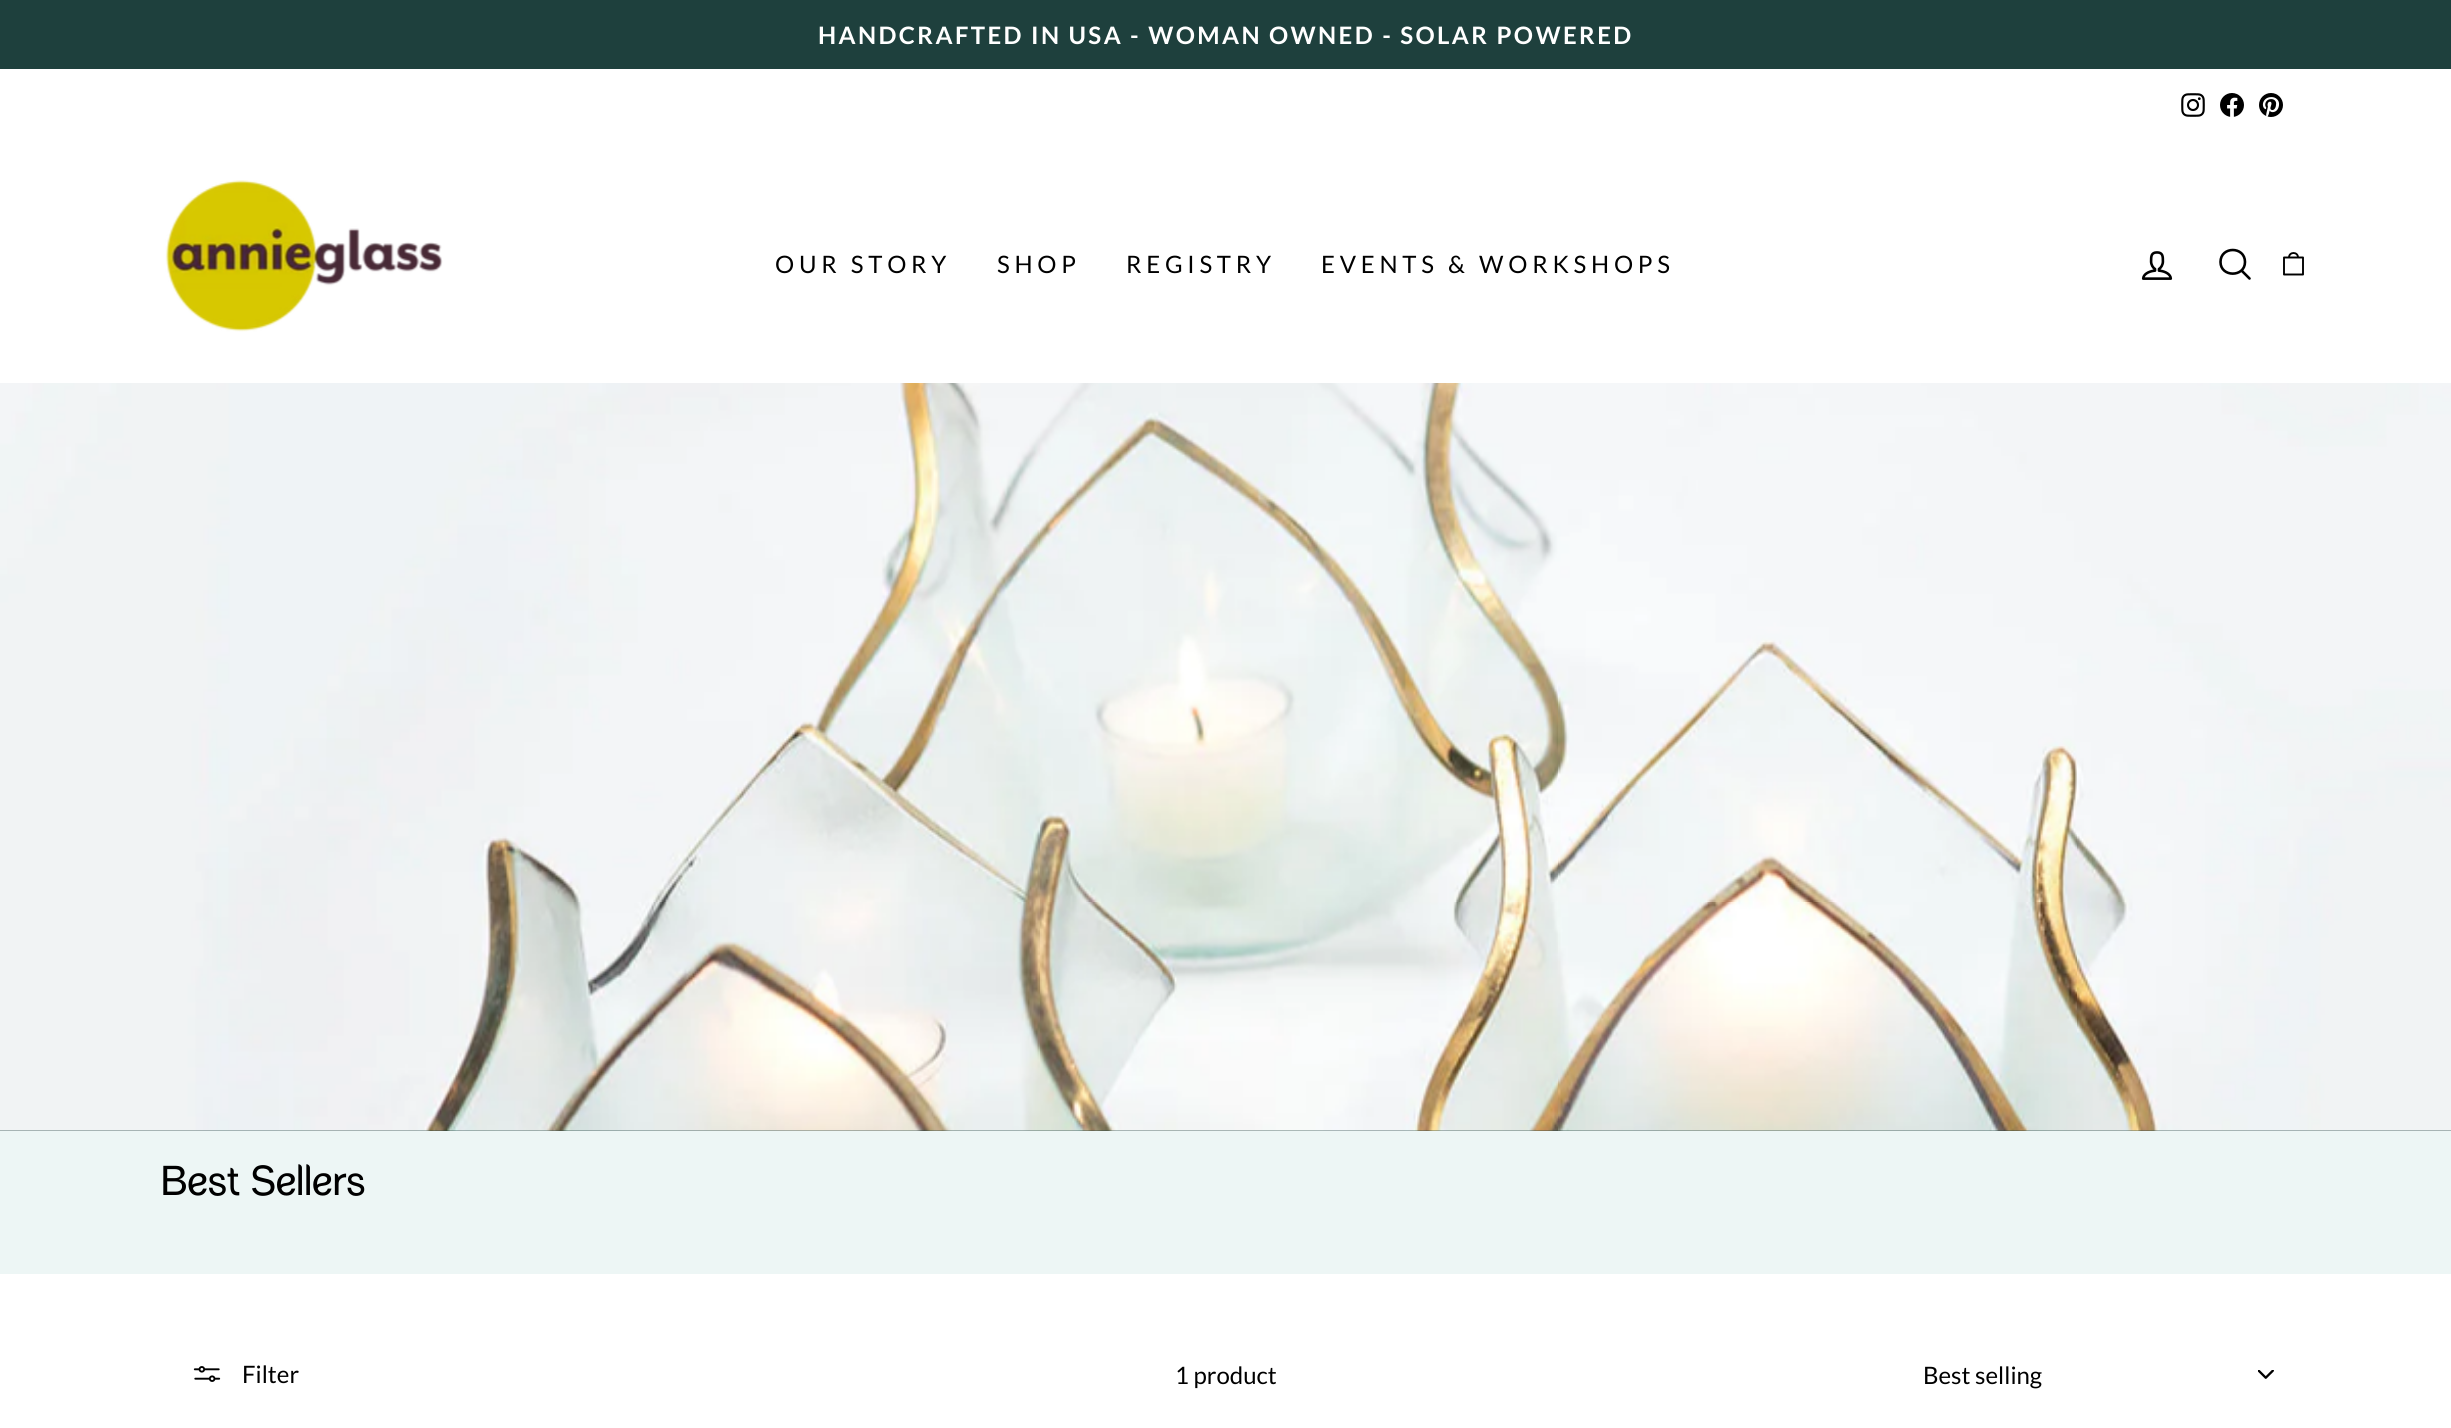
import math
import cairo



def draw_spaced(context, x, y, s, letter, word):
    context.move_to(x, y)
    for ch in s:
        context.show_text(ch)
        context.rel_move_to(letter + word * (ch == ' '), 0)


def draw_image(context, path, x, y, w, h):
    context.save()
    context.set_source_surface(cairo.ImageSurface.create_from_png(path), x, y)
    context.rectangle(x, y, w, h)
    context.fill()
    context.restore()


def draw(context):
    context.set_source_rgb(1, 1, 1)
    context.paint()
    context.set_source_rgb(30 / 255, 64 / 255, 61 / 255)
    context.rectangle(0, 0, 2451, 69)
    context.fill()
    draw_image(context, "images/1.png", 2181, 93, 24, 24)
    draw_image(context, "images/2.png", 2220, 93, 24, 24)
    draw_image(context, "images/3.png", 2259, 93, 24, 24)
    draw_image(context, "images/4.png", 165, 180, 278, 152)
    draw_image(context, "images/5.png", 2141, 251, 32, 29)
    context.new_path()
    context.move_to(2245, 262)
    context.curve_to(2245, 277.5, 2220.5, 277.5, 2220.5, 262)
    context.curve_to(2220.5, 246, 2245, 246, 2245, 262)
    context.close_path()
    context.move_to(2249.5, 278.5)
    context.line_to(2241.5, 270.5)
    context.set_source_rgb(0, 0, 0)
    context.set_line_width(2.6)
    context.set_line_cap(cairo.LineCap.ROUND)
    context.set_line_join(cairo.LineJoin.ROUND)
    context.stroke()
    context.new_path()
    context.move_to(2284, 257.5)
    context.line_to(2303, 257.5)
    context.line_to(2303, 274.5)
    context.line_to(2284, 274.5)
    context.close_path()
    context.move_to(2289, 257.5)
    context.curve_to(2289, 251.5, 2298, 251.5, 2298, 257.5)
    context.set_line_width(1.9)
    context.stroke()
    context.set_source_rgb(30 / 255, 64 / 255, 61 / 255)
    context.rectangle(0, 1130, 2451, 1)
    context.fill()
    draw_image(context, "images/6.png", 0, 383, 2451, 748)
    context.set_source_rgb(237 / 255, 246 / 255, 245 / 255)
    context.rectangle(0, 1131, 2451, 143)
    context.fill()
    draw_image(context, "images/7.png", 193, 1366, 28, 16)
    draw_image(context, "images/8.png", 2258, 1370, 16, 9)
    context.select_font_face("Lato", cairo.FontSlant.NORMAL, cairo.FontWeight.BOLD)
    context.set_font_size(24)
    context.set_source_rgb(1, 1, 1)
    draw_spaced(context, 818, 44, "HANDCRAFTED IN USA - WOMAN OWNED - SOLAR POWERED", 2.4, 0)
    context.select_font_face("Lato")
    context.set_source_rgb(0, 0, 0)
    draw_spaced(context, 775, 273, "OUR STORY", 4.75, 0)
    draw_spaced(context, 997, 273, "SHOP", 4.75, 0)
    draw_spaced(context, 1126, 273, "REGISTRY", 4.75, 0)
    draw_spaced(context, 1321, 273, "EVENTS & WORKSHOPS", 4.75, 0)
    context.select_font_face("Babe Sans")
    context.set_font_size(45)
    context.move_to(161, 1195)
    context.show_text("Best Sellers")
    context.select_font_face("Lato")
    context.set_font_size(24)
    context.move_to(242, 1383)
    context.show_text("Filter")
    context.move_to(1175, 1384)
    context.show_text("1 product")
    context.move_to(1923, 1384)
    context.show_text("Best selling")


surface = cairo.ImageSurface(cairo.Format.RGB24, 2451, 1428)
context = cairo.Context(surface)
options = cairo.FontOptions()
options.set_hint_metrics(cairo.HintMetrics.OFF)
options.set_hint_style(cairo.HintStyle.NONE)
context.set_font_options(options)
context.set_miter_limit(4)
draw(context)
surface.write_to_png("out.png")
